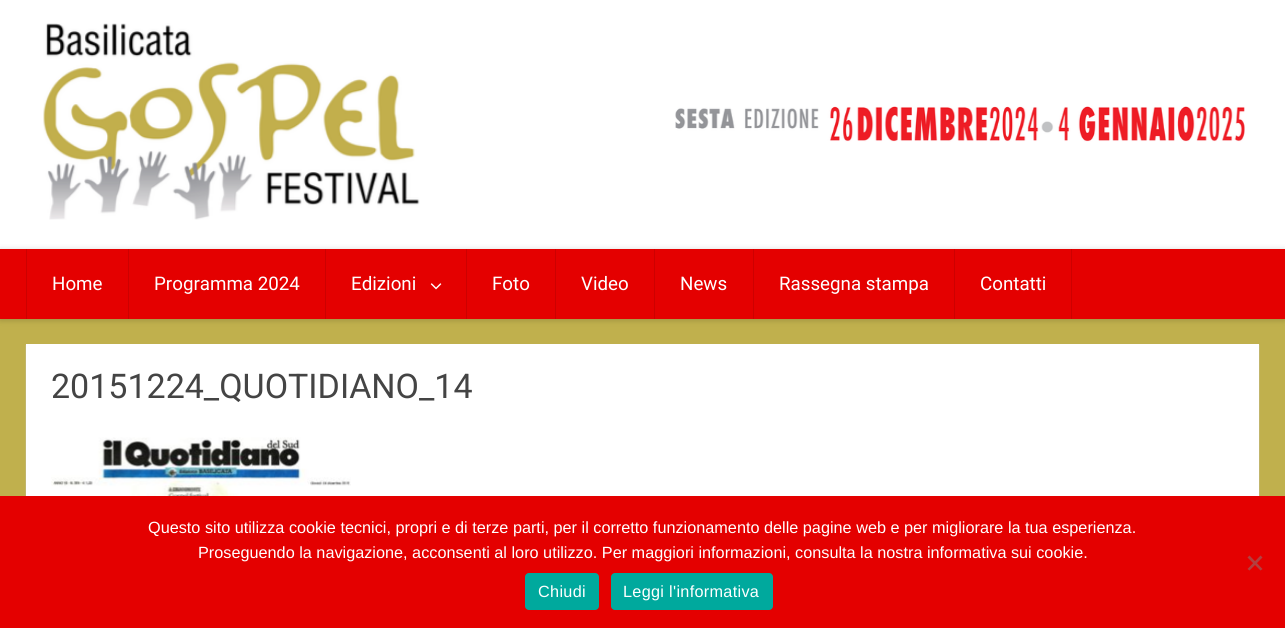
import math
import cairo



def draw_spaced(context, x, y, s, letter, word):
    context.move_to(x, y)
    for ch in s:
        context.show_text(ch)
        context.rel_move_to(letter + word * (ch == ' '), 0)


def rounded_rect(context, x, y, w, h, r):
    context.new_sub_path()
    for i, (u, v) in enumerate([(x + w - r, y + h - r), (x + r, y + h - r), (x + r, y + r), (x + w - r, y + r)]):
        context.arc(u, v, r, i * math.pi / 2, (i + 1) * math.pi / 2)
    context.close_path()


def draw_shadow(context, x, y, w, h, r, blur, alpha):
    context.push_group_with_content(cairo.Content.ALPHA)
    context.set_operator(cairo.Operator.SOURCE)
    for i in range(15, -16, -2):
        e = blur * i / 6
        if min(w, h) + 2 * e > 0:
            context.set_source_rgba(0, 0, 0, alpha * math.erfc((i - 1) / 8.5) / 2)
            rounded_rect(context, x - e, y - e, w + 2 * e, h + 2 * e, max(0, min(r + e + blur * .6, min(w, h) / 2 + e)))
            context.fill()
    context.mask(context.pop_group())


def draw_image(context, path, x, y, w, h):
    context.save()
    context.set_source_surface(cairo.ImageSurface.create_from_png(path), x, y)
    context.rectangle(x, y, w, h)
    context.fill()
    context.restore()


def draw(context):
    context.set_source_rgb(192 / 255, 176 / 255, 77 / 255)
    context.paint()
    context.set_source_rgb(1, 1, 1)
    context.rectangle(0, 0, 1285, 249)
    context.fill()
    draw_image(context, "images/1.png", 43, 23, 377, 197)
    draw_image(context, "images/2.png", 675, 106, 570, 36)
    context.set_source_rgb(0, 0, 0)
    draw_shadow(context, 0, 250, 1285, 70, 0, 3, 0.2)
    context.set_source_rgb(228 / 255, 0, 0)
    context.rectangle(0, 249, 1285, 70)
    context.fill()
    context.set_source_rgb(205 / 255, 0, 0)
    context.rectangle(128, 249, 1, 70)
    context.fill()
    context.rectangle(26, 249, 1, 70)
    context.fill()
    context.rectangle(325, 249, 1, 70)
    context.fill()
    context.rectangle(466, 249, 1, 70)
    context.fill()
    draw_image(context, "images/3.png", 430, 283, 12, 7)
    context.rectangle(555, 249, 1, 70)
    context.fill()
    context.rectangle(654, 249, 1, 70)
    context.fill()
    context.rectangle(753, 249, 1, 70)
    context.fill()
    context.rectangle(954, 249, 1, 70)
    context.fill()
    context.rectangle(1071, 249, 1, 70)
    context.fill()
    context.set_source_rgb(194 / 255, 196 / 255, 196 / 255)
    draw_shadow(context, 26, 345, 1233, 269, 0, 0.5, 1)
    context.set_source_rgb(1, 1, 1)
    context.rectangle(26, 344, 1233, 152)
    context.fill()
    draw_image(context, "images/4.png", 51, 437, 300, 59)
    context.set_source_rgb(228 / 255, 0, 0)
    context.rectangle(0, 496, 1285, 132)
    context.fill()
    context.set_source_rgb(178 / 255, 64 / 255, 64 / 255)
    context.new_path()
    context.move_to(1260.5, 555.5)
    context.line_to(1262.5, 557.5)
    context.line_to(1249.5, 570.5)
    context.line_to(1247.5, 569)
    context.close_path()
    context.fill()
    context.new_path()
    context.move_to(1247.5, 557.5)
    context.line_to(1249.5, 555.5)
    context.line_to(1262.5, 569)
    context.line_to(1260.5, 570.5)
    context.close_path()
    context.fill()
    context.set_source_rgb(0, 169 / 255, 157 / 255)
    rounded_rect(context, 525, 573, 74, 37, 4)
    context.fill()
    rounded_rect(context, 611, 573, 162, 37, 4)
    context.fill()
    context.select_font_face("Roboto")
    context.set_font_size(18.75)
    context.set_source_rgb(1, 1, 1)
    context.move_to(52, 290)
    context.show_text("Home")
    context.move_to(154, 290)
    context.show_text("Programma 2024")
    context.move_to(351, 290)
    context.show_text("Edizioni")
    context.move_to(492, 290)
    context.show_text("Foto")
    context.move_to(581, 290)
    context.show_text("Video")
    context.move_to(680, 290)
    context.show_text("News")
    context.move_to(779, 290)
    context.show_text("Rassegna stampa")
    context.move_to(980, 290)
    context.show_text("Contatti")
    context.set_font_size(34)
    context.set_source_rgb(68 / 255, 68 / 255, 68 / 255)
    context.move_to(51, 398)
    context.show_text("20151224_QUOTIDIANO_14")
    context.select_font_face("Liberation Sans")
    context.set_font_size(16.25)
    context.set_source_rgb(1, 1, 1)
    context.move_to(148, 533)
    context.show_text("Questo sito utilizza cookie tecnici, propri e di terze parti, per il corretto funzionamento delle pagine web e per migliorare la tua esperienza.")
    context.move_to(198, 558)
    context.show_text("Proseguendo la navigazione, acconsenti al loro utilizzo. Per maggiori informazioni, consulta la nostra informativa sui cookie.")
    draw_spaced(context, 538, 597, "Chiudi", 0.3, 0)
    draw_spaced(context, 623, 597, "Leggi l'informativa", 0.3, 0)


surface = cairo.ImageSurface(cairo.Format.RGB24, 1285, 628)
context = cairo.Context(surface)
options = cairo.FontOptions()
options.set_hint_metrics(cairo.HintMetrics.OFF)
options.set_hint_style(cairo.HintStyle.NONE)
context.set_font_options(options)
context.set_miter_limit(4)
draw(context)
surface.write_to_png("out.png")
